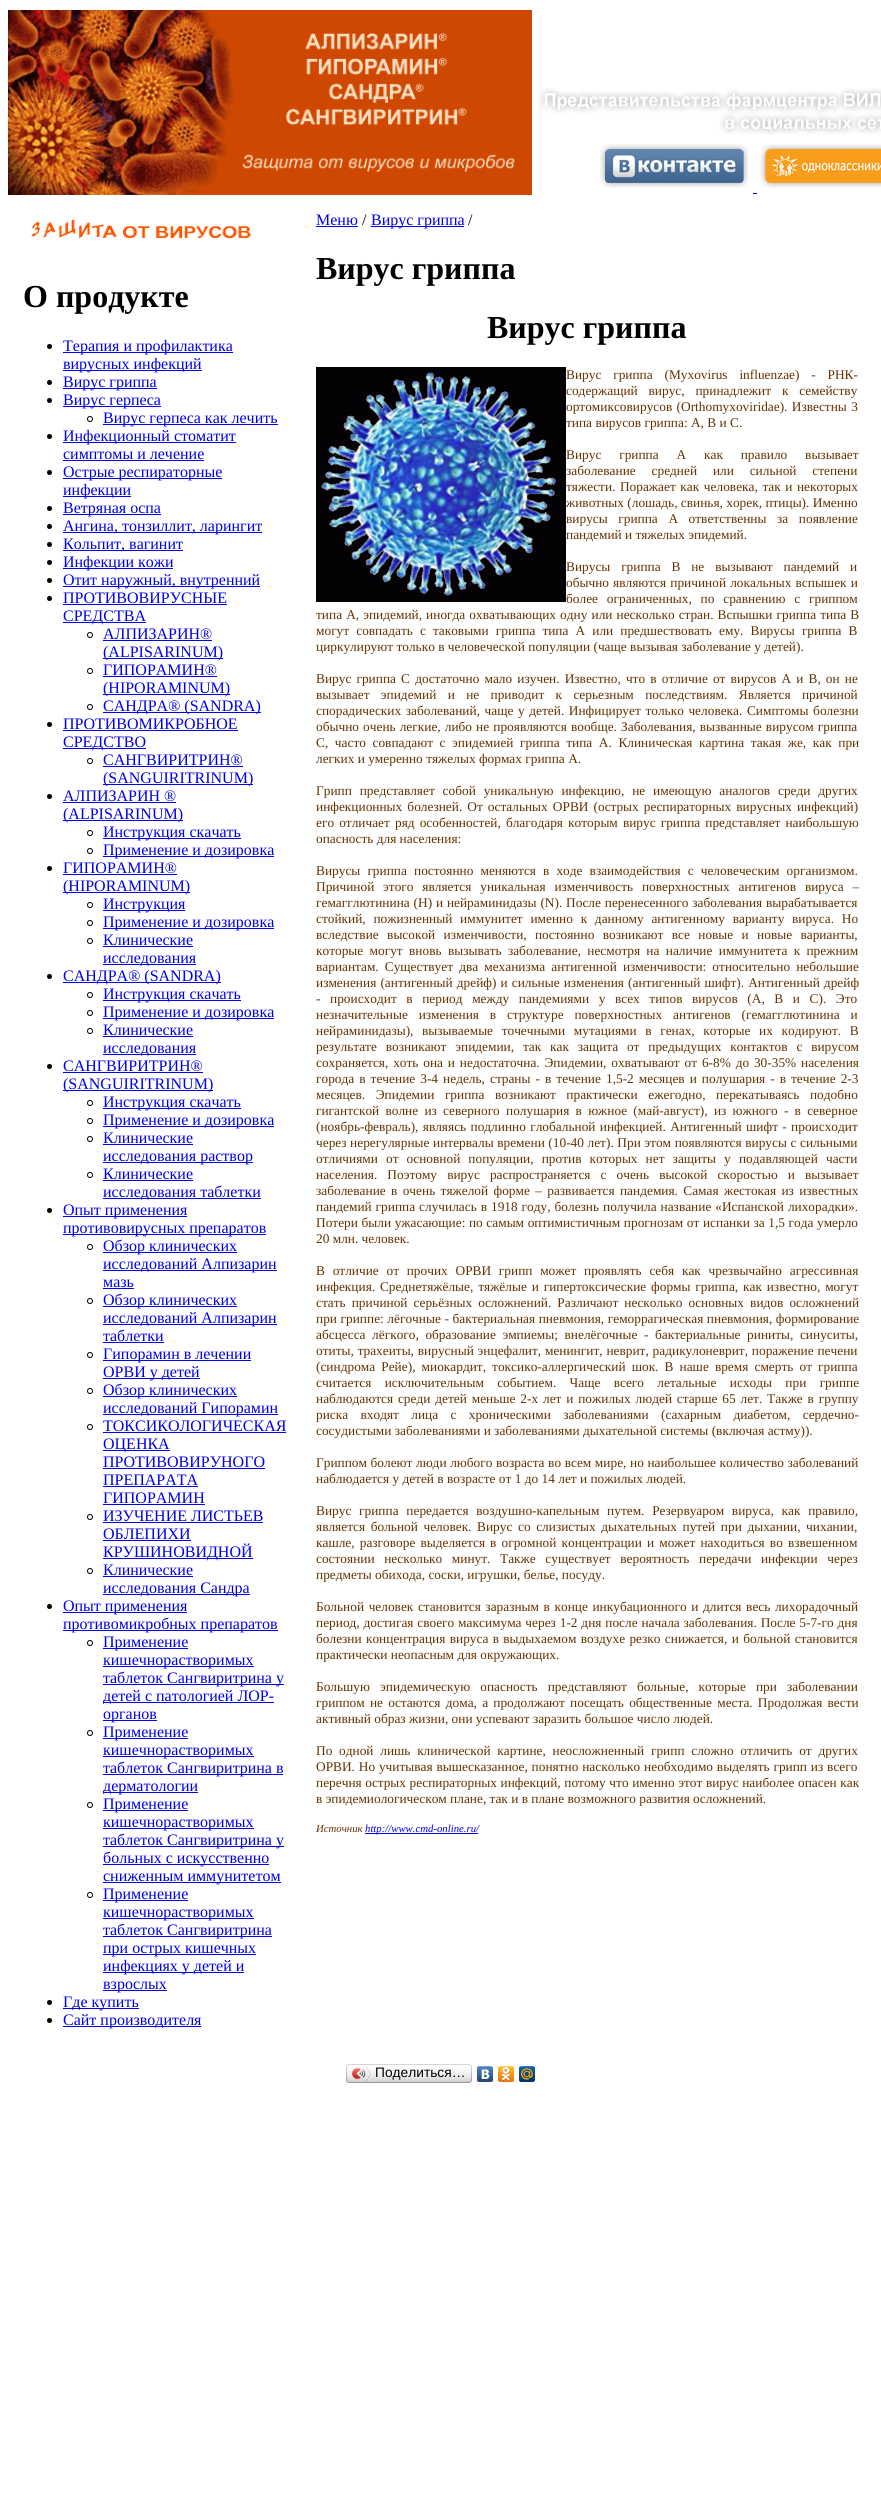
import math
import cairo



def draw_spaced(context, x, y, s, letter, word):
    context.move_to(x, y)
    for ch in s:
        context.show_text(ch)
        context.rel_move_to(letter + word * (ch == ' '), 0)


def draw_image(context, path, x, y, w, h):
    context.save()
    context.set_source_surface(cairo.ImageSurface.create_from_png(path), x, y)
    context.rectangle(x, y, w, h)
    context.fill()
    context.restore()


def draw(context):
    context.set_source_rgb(1, 1, 1)
    context.paint()
    draw_image(context, "images/1.png", 8, 10, 524, 185)
    draw_image(context, "images/2.png", 539, 88, 342, 47)
    draw_image(context, "images/3.png", 600, 144, 149, 44)
    draw_image(context, "images/4.png", 760, 144, 121, 44)
    context.set_source_rgb(0, 0, 238 / 255)
    context.rectangle(753, 193, 4, 1)
    context.fill()
    draw_image(context, "images/5.png", 31, 219, 220, 20)
    context.set_source_rgb(0, 0, 0)
    context.arc(49.5, 346.5, 2.5, 0, 2 * math.pi)
    context.fill()
    context.set_source_rgb(0, 0, 238 / 255)
    context.rectangle(63, 352, 170, 1)
    context.fill()
    context.rectangle(63, 370, 139, 1)
    context.fill()
    context.set_source_rgb(0, 0, 0)
    context.arc(49.5, 382.5, 2.5, 0, 2 * math.pi)
    context.fill()
    context.set_source_rgb(0, 0, 238 / 255)
    context.rectangle(63, 388, 94, 1)
    context.fill()
    context.set_source_rgb(0, 0, 0)
    context.arc(49.5, 400.5, 2.5, 0, 2 * math.pi)
    context.fill()
    context.set_source_rgb(0, 0, 238 / 255)
    context.rectangle(63, 406, 98, 1)
    context.fill()
    context.arc(90, 419, 2.5, 0, 2 * math.pi)
    context.set_source_rgb(0, 0, 0)
    context.set_line_width(1)
    context.stroke()
    context.set_source_rgb(0, 0, 238 / 255)
    context.rectangle(103, 424, 175, 1)
    context.fill()
    context.set_source_rgb(0, 0, 0)
    context.arc(49.5, 436.5, 2.5, 0, 2 * math.pi)
    context.fill()
    context.set_source_rgb(0, 0, 238 / 255)
    context.rectangle(63, 442, 173, 1)
    context.fill()
    context.rectangle(63, 460, 141, 1)
    context.fill()
    context.set_source_rgb(0, 0, 0)
    context.arc(49.5, 472.5, 2.5, 0, 2 * math.pi)
    context.fill()
    context.set_source_rgb(0, 0, 238 / 255)
    context.rectangle(63, 478, 159, 1)
    context.fill()
    context.rectangle(63, 496, 68, 1)
    context.fill()
    context.set_source_rgb(0, 0, 0)
    context.arc(49.5, 508.5, 2.5, 0, 2 * math.pi)
    context.fill()
    context.set_source_rgb(0, 0, 238 / 255)
    context.rectangle(63, 514, 98, 1)
    context.fill()
    context.set_source_rgb(0, 0, 0)
    context.arc(49.5, 526.5, 2.5, 0, 2 * math.pi)
    context.fill()
    context.set_source_rgb(0, 0, 238 / 255)
    context.rectangle(63, 532, 199, 1)
    context.fill()
    context.set_source_rgb(0, 0, 0)
    context.arc(49.5, 544.5, 2.5, 0, 2 * math.pi)
    context.fill()
    context.set_source_rgb(0, 0, 238 / 255)
    context.rectangle(63, 550, 120, 1)
    context.fill()
    context.set_source_rgb(0, 0, 0)
    context.arc(49.5, 562.5, 2.5, 0, 2 * math.pi)
    context.fill()
    context.set_source_rgb(0, 0, 238 / 255)
    context.rectangle(63, 568, 110, 1)
    context.fill()
    context.set_source_rgb(0, 0, 0)
    context.arc(49.5, 580.5, 2.5, 0, 2 * math.pi)
    context.fill()
    context.set_source_rgb(0, 0, 238 / 255)
    context.rectangle(63, 586, 197, 1)
    context.fill()
    context.set_source_rgb(0, 0, 0)
    context.arc(49.5, 598.5, 2.5, 0, 2 * math.pi)
    context.fill()
    context.set_source_rgb(0, 0, 238 / 255)
    context.rectangle(63, 604, 164, 1)
    context.fill()
    context.rectangle(63, 622, 83, 1)
    context.fill()
    context.arc(90, 635, 2.5, 0, 2 * math.pi)
    context.set_source_rgb(0, 0, 0)
    context.stroke()
    context.set_source_rgb(0, 0, 238 / 255)
    context.rectangle(103, 640, 109, 1)
    context.fill()
    context.rectangle(103, 658, 120, 1)
    context.fill()
    context.arc(90, 671, 2.5, 0, 2 * math.pi)
    context.set_source_rgb(0, 0, 0)
    context.stroke()
    context.set_source_rgb(0, 0, 238 / 255)
    context.rectangle(103, 676, 114, 1)
    context.fill()
    context.rectangle(103, 694, 127, 1)
    context.fill()
    context.arc(90, 707, 2.5, 0, 2 * math.pi)
    context.set_source_rgb(0, 0, 0)
    context.stroke()
    context.set_source_rgb(0, 0, 238 / 255)
    context.rectangle(103, 712, 158, 1)
    context.fill()
    context.set_source_rgb(0, 0, 0)
    context.arc(49.5, 724.5, 2.5, 0, 2 * math.pi)
    context.fill()
    context.set_source_rgb(0, 0, 238 / 255)
    context.rectangle(63, 730, 175, 1)
    context.fill()
    context.rectangle(63, 748, 83, 1)
    context.fill()
    context.arc(90, 761, 2.5, 0, 2 * math.pi)
    context.set_source_rgb(0, 0, 0)
    context.stroke()
    context.set_source_rgb(0, 0, 238 / 255)
    context.rectangle(103, 766, 140, 1)
    context.fill()
    context.rectangle(103, 784, 150, 1)
    context.fill()
    context.set_source_rgb(0, 0, 0)
    context.arc(49.5, 796.5, 2.5, 0, 2 * math.pi)
    context.fill()
    context.set_source_rgb(0, 0, 238 / 255)
    context.rectangle(63, 802, 113, 1)
    context.fill()
    context.rectangle(63, 820, 120, 1)
    context.fill()
    context.arc(90, 833, 2.5, 0, 2 * math.pi)
    context.set_source_rgb(0, 0, 0)
    context.stroke()
    context.set_source_rgb(0, 0, 238 / 255)
    context.rectangle(103, 838, 138, 1)
    context.fill()
    context.arc(90, 851, 2.5, 0, 2 * math.pi)
    context.set_source_rgb(0, 0, 0)
    context.stroke()
    context.set_source_rgb(0, 0, 238 / 255)
    context.rectangle(103, 856, 171, 1)
    context.fill()
    context.set_source_rgb(0, 0, 0)
    context.arc(49.5, 868.5, 2.5, 0, 2 * math.pi)
    context.fill()
    context.set_source_rgb(0, 0, 238 / 255)
    context.rectangle(63, 874, 114, 1)
    context.fill()
    context.rectangle(63, 892, 127, 1)
    context.fill()
    context.arc(90, 905, 2.5, 0, 2 * math.pi)
    context.set_source_rgb(0, 0, 0)
    context.stroke()
    context.set_source_rgb(0, 0, 238 / 255)
    context.rectangle(103, 910, 82, 1)
    context.fill()
    context.arc(90, 923, 2.5, 0, 2 * math.pi)
    context.set_source_rgb(0, 0, 0)
    context.stroke()
    context.set_source_rgb(0, 0, 238 / 255)
    context.rectangle(103, 928, 171, 1)
    context.fill()
    context.arc(90, 941, 2.5, 0, 2 * math.pi)
    context.set_source_rgb(0, 0, 0)
    context.stroke()
    context.set_source_rgb(0, 0, 238 / 255)
    context.rectangle(103, 946, 90, 1)
    context.fill()
    context.rectangle(103, 964, 93, 1)
    context.fill()
    context.set_source_rgb(0, 0, 0)
    context.arc(49.5, 976.5, 2.5, 0, 2 * math.pi)
    context.fill()
    context.set_source_rgb(0, 0, 238 / 255)
    context.rectangle(63, 982, 158, 1)
    context.fill()
    context.arc(90, 995, 2.5, 0, 2 * math.pi)
    context.set_source_rgb(0, 0, 0)
    context.stroke()
    context.set_source_rgb(0, 0, 238 / 255)
    context.rectangle(103, 1000, 138, 1)
    context.fill()
    context.arc(90, 1013, 2.5, 0, 2 * math.pi)
    context.set_source_rgb(0, 0, 0)
    context.stroke()
    context.set_source_rgb(0, 0, 238 / 255)
    context.rectangle(103, 1018, 171, 1)
    context.fill()
    context.arc(90, 1031, 2.5, 0, 2 * math.pi)
    context.set_source_rgb(0, 0, 0)
    context.stroke()
    context.set_source_rgb(0, 0, 238 / 255)
    context.rectangle(103, 1036, 90, 1)
    context.fill()
    context.rectangle(103, 1054, 93, 1)
    context.fill()
    context.set_source_rgb(0, 0, 0)
    context.arc(49.5, 1066.5, 2.5, 0, 2 * math.pi)
    context.fill()
    context.set_source_rgb(0, 0, 238 / 255)
    context.rectangle(63, 1072, 140, 1)
    context.fill()
    context.rectangle(63, 1090, 150, 1)
    context.fill()
    context.arc(90, 1103, 2.5, 0, 2 * math.pi)
    context.set_source_rgb(0, 0, 0)
    context.stroke()
    context.set_source_rgb(0, 0, 238 / 255)
    context.rectangle(103, 1108, 138, 1)
    context.fill()
    context.arc(90, 1121, 2.5, 0, 2 * math.pi)
    context.set_source_rgb(0, 0, 0)
    context.stroke()
    context.set_source_rgb(0, 0, 238 / 255)
    context.rectangle(103, 1126, 171, 1)
    context.fill()
    context.arc(90, 1139, 2.5, 0, 2 * math.pi)
    context.set_source_rgb(0, 0, 0)
    context.stroke()
    context.set_source_rgb(0, 0, 238 / 255)
    context.rectangle(103, 1144, 90, 1)
    context.fill()
    context.rectangle(103, 1162, 150, 1)
    context.fill()
    context.arc(90, 1175, 2.5, 0, 2 * math.pi)
    context.set_source_rgb(0, 0, 0)
    context.stroke()
    context.set_source_rgb(0, 0, 238 / 255)
    context.rectangle(103, 1180, 90, 1)
    context.fill()
    context.rectangle(103, 1198, 158, 1)
    context.fill()
    context.set_source_rgb(0, 0, 0)
    context.arc(49.5, 1210.5, 2.5, 0, 2 * math.pi)
    context.fill()
    context.set_source_rgb(0, 0, 238 / 255)
    context.rectangle(63, 1216, 124, 1)
    context.fill()
    context.rectangle(63, 1234, 203, 1)
    context.fill()
    context.arc(90, 1247, 2.5, 0, 2 * math.pi)
    context.set_source_rgb(0, 0, 0)
    context.stroke()
    context.set_source_rgb(0, 0, 238 / 255)
    context.rectangle(103, 1252, 134, 1)
    context.fill()
    context.rectangle(103, 1270, 174, 1)
    context.fill()
    context.rectangle(103, 1288, 31, 1)
    context.fill()
    context.arc(90, 1301, 2.5, 0, 2 * math.pi)
    context.set_source_rgb(0, 0, 0)
    context.stroke()
    context.set_source_rgb(0, 0, 238 / 255)
    context.rectangle(103, 1306, 134, 1)
    context.fill()
    context.rectangle(103, 1324, 174, 1)
    context.fill()
    context.rectangle(103, 1342, 61, 1)
    context.fill()
    context.arc(90, 1355, 2.5, 0, 2 * math.pi)
    context.set_source_rgb(0, 0, 0)
    context.stroke()
    context.set_source_rgb(0, 0, 238 / 255)
    context.rectangle(103, 1360, 148, 1)
    context.fill()
    context.rectangle(103, 1378, 97, 1)
    context.fill()
    context.arc(90, 1391, 2.5, 0, 2 * math.pi)
    context.set_source_rgb(0, 0, 0)
    context.stroke()
    context.set_source_rgb(0, 0, 238 / 255)
    context.rectangle(103, 1396, 134, 1)
    context.fill()
    context.rectangle(103, 1414, 175, 1)
    context.fill()
    context.arc(90, 1427, 2.5, 0, 2 * math.pi)
    context.set_source_rgb(0, 0, 0)
    context.stroke()
    context.set_source_rgb(0, 0, 238 / 255)
    context.rectangle(103, 1432, 183, 1)
    context.fill()
    context.rectangle(103, 1450, 67, 1)
    context.fill()
    context.rectangle(103, 1468, 162, 1)
    context.fill()
    context.rectangle(103, 1486, 95, 1)
    context.fill()
    context.rectangle(103, 1504, 102, 1)
    context.fill()
    context.arc(90, 1517, 2.5, 0, 2 * math.pi)
    context.set_source_rgb(0, 0, 0)
    context.stroke()
    context.set_source_rgb(0, 0, 238 / 255)
    context.rectangle(103, 1522, 160, 1)
    context.fill()
    context.rectangle(103, 1540, 88, 1)
    context.fill()
    context.rectangle(103, 1558, 150, 1)
    context.fill()
    context.arc(90, 1571, 2.5, 0, 2 * math.pi)
    context.set_source_rgb(0, 0, 0)
    context.stroke()
    context.set_source_rgb(0, 0, 238 / 255)
    context.rectangle(103, 1576, 90, 1)
    context.fill()
    context.rectangle(103, 1594, 147, 1)
    context.fill()
    context.set_source_rgb(0, 0, 0)
    context.arc(49.5, 1606.5, 2.5, 0, 2 * math.pi)
    context.fill()
    context.set_source_rgb(0, 0, 238 / 255)
    context.rectangle(63, 1612, 124, 1)
    context.fill()
    context.rectangle(63, 1630, 215, 1)
    context.fill()
    context.arc(90, 1643, 2.5, 0, 2 * math.pi)
    context.set_source_rgb(0, 0, 0)
    context.stroke()
    context.set_source_rgb(0, 0, 238 / 255)
    context.rectangle(103, 1648, 85, 1)
    context.fill()
    context.rectangle(103, 1666, 151, 1)
    context.fill()
    context.rectangle(103, 1684, 181, 1)
    context.fill()
    context.rectangle(103, 1702, 171, 1)
    context.fill()
    context.rectangle(103, 1720, 54, 1)
    context.fill()
    context.arc(90, 1733, 2.5, 0, 2 * math.pi)
    context.set_source_rgb(0, 0, 0)
    context.stroke()
    context.set_source_rgb(0, 0, 238 / 255)
    context.rectangle(103, 1738, 85, 1)
    context.fill()
    context.rectangle(103, 1756, 151, 1)
    context.fill()
    context.rectangle(103, 1774, 180, 1)
    context.fill()
    context.rectangle(103, 1792, 95, 1)
    context.fill()
    context.arc(90, 1805, 2.5, 0, 2 * math.pi)
    context.set_source_rgb(0, 0, 0)
    context.stroke()
    context.set_source_rgb(0, 0, 238 / 255)
    context.rectangle(103, 1810, 85, 1)
    context.fill()
    context.rectangle(103, 1828, 151, 1)
    context.fill()
    context.rectangle(103, 1846, 181, 1)
    context.fill()
    context.rectangle(103, 1864, 166, 1)
    context.fill()
    context.rectangle(103, 1882, 178, 1)
    context.fill()
    context.arc(90, 1895, 2.5, 0, 2 * math.pi)
    context.set_source_rgb(0, 0, 0)
    context.stroke()
    context.set_source_rgb(0, 0, 238 / 255)
    context.rectangle(103, 1900, 85, 1)
    context.fill()
    context.rectangle(103, 1918, 151, 1)
    context.fill()
    context.rectangle(103, 1936, 169, 1)
    context.fill()
    context.rectangle(103, 1954, 153, 1)
    context.fill()
    context.rectangle(103, 1972, 141, 1)
    context.fill()
    context.rectangle(103, 1990, 64, 1)
    context.fill()
    context.set_source_rgb(0, 0, 0)
    context.arc(49.5, 2002.5, 2.5, 0, 2 * math.pi)
    context.fill()
    context.set_source_rgb(0, 0, 238 / 255)
    context.rectangle(63, 2008, 76, 1)
    context.fill()
    context.set_source_rgb(0, 0, 0)
    context.arc(49.5, 2020.5, 2.5, 0, 2 * math.pi)
    context.fill()
    context.set_source_rgb(0, 0, 238 / 255)
    context.rectangle(63, 2026, 138, 1)
    context.fill()
    context.rectangle(316, 226, 42, 1)
    context.fill()
    context.rectangle(371, 226, 93, 1)
    context.fill()
    draw_image(context, "images/6.png", 316, 367, 250, 235)
    context.rectangle(365, 1833, 113, 1)
    context.fill()
    draw_image(context, "images/7.png", 349, 2064, 120, 19)
    draw_image(context, "images/8.png", 346, 2064, 3, 19)
    draw_image(context, "images/9.png", 352, 2065, 20, 17)
    draw_image(context, "images/10.png", 469, 2064, 3, 19)
    draw_image(context, "images/11.png", 477, 2066, 16, 16)
    draw_image(context, "images/12.png", 498, 2066, 16, 16)
    draw_image(context, "images/13.png", 519, 2066, 16, 16)
    context.select_font_face("Liberation Serif", cairo.FontSlant.NORMAL, cairo.FontWeight.BOLD)
    context.set_font_size(32)
    context.set_source_rgb(0, 0, 0)
    context.move_to(23, 307)
    context.show_text("О продукте")
    context.select_font_face("Liberation Serif")
    context.set_font_size(16)
    context.set_source_rgb(0, 0, 238 / 255)
    context.move_to(63, 351)
    context.show_text("Терапия и профилактика")
    context.move_to(63, 369)
    context.show_text("вирусных инфекций")
    context.move_to(63, 387)
    context.show_text("Вирус гриппа")
    context.move_to(63, 405)
    context.show_text("Вирус герпеса")
    context.move_to(103, 423)
    context.show_text("Вирус герпеса как лечить")
    context.move_to(63, 441)
    context.show_text("Инфекционный стоматит")
    context.move_to(63, 459)
    context.show_text("симптомы и лечение")
    context.move_to(63, 477)
    context.show_text("Острые респираторные")
    context.move_to(63, 495)
    context.show_text("инфекции")
    context.move_to(63, 513)
    context.show_text("Ветряная оспа")
    context.move_to(63, 531)
    context.show_text("Ангина, тонзиллит, ларингит")
    context.move_to(63, 549)
    context.show_text("Кольпит, вагинит")
    context.move_to(63, 567)
    context.show_text("Инфекции кожи")
    context.move_to(63, 585)
    context.show_text("Отит наружный, внутренний")
    context.move_to(63, 603)
    context.show_text("ПРОТИВОВИРУСНЫЕ")
    context.move_to(63, 621)
    context.show_text("СРЕДСТВА")
    context.move_to(103, 639)
    context.show_text("АЛПИЗАРИН®")
    context.move_to(103, 657)
    context.show_text("(ALPISARINUM)")
    context.move_to(103, 675)
    context.show_text("ГИПОРАМИН®")
    context.move_to(103, 693)
    context.show_text("(HIPORAMINUM)")
    context.move_to(103, 711)
    context.show_text("САНДРА® (SANDRA)")
    context.move_to(63, 729)
    context.show_text("ПРОТИВОМИКРОБНОЕ")
    context.move_to(63, 747)
    context.show_text("СРЕДСТВО")
    context.move_to(103, 765)
    context.show_text("САНГВИРИТРИН®")
    context.move_to(103, 783)
    context.show_text("(SANGUIRITRINUM)")
    context.move_to(63, 801)
    context.show_text("АЛПИЗАРИН ®")
    context.move_to(63, 819)
    context.show_text("(ALPISARINUM)")
    context.move_to(103, 837)
    context.show_text("Инструкция скачать")
    context.move_to(103, 855)
    context.show_text("Применение и дозировка")
    context.move_to(63, 873)
    context.show_text("ГИПОРАМИН®")
    context.move_to(63, 891)
    context.show_text("(HIPORAMINUM)")
    context.move_to(103, 909)
    context.show_text("Инструкция")
    context.move_to(103, 927)
    context.show_text("Применение и дозировка")
    context.move_to(103, 945)
    context.show_text("Клинические")
    context.move_to(103, 963)
    context.show_text("исследования")
    context.move_to(63, 981)
    context.show_text("САНДРА® (SANDRA)")
    context.move_to(103, 999)
    context.show_text("Инструкция скачать")
    context.move_to(103, 1017)
    context.show_text("Применение и дозировка")
    context.move_to(103, 1035)
    context.show_text("Клинические")
    context.move_to(103, 1053)
    context.show_text("исследования")
    context.move_to(63, 1071)
    context.show_text("САНГВИРИТРИН®")
    context.move_to(63, 1089)
    context.show_text("(SANGUIRITRINUM)")
    context.move_to(103, 1107)
    context.show_text("Инструкция скачать")
    context.move_to(103, 1125)
    context.show_text("Применение и дозировка")
    context.move_to(103, 1143)
    context.show_text("Клинические")
    context.move_to(103, 1161)
    context.show_text("исследования раствор")
    context.move_to(103, 1179)
    context.show_text("Клинические")
    context.move_to(103, 1197)
    context.show_text("исследования таблетки")
    context.move_to(63, 1215)
    context.show_text("Опыт применения")
    context.move_to(63, 1233)
    context.show_text("противовирусных препаратов")
    context.move_to(103, 1251)
    context.show_text("Обзор клинических")
    context.move_to(103, 1269)
    context.show_text("исследований Алпизарин")
    context.move_to(103, 1287)
    context.show_text("мазь")
    context.move_to(103, 1305)
    context.show_text("Обзор клинических")
    context.move_to(103, 1323)
    context.show_text("исследований Алпизарин")
    context.move_to(103, 1341)
    context.show_text("таблетки")
    context.move_to(103, 1359)
    context.show_text("Гипорамин в лечении")
    context.move_to(103, 1377)
    context.show_text("ОРВИ у детей")
    context.move_to(103, 1395)
    context.show_text("Обзор клинических")
    context.move_to(103, 1413)
    context.show_text("исследований Гипорамин")
    context.move_to(103, 1431)
    context.show_text("ТОКСИКОЛОГИЧЕСКАЯ")
    context.move_to(103, 1449)
    context.show_text("ОЦЕНКА")
    context.move_to(103, 1467)
    context.show_text("ПРОТИВОВИРУНОГО")
    context.move_to(103, 1485)
    context.show_text("ПРЕПАРАТА")
    context.move_to(103, 1503)
    context.show_text("ГИПОРАМИН")
    context.move_to(103, 1521)
    context.show_text("ИЗУЧЕНИЕ ЛИСТЬЕВ")
    context.move_to(103, 1539)
    context.show_text("ОБЛЕПИХИ")
    context.move_to(103, 1557)
    context.show_text("КРУШИНОВИДНОЙ")
    context.move_to(103, 1575)
    context.show_text("Клинические")
    context.move_to(103, 1593)
    context.show_text("исследования Сандра")
    context.move_to(63, 1611)
    context.show_text("Опыт применения")
    context.move_to(63, 1629)
    context.show_text("противомикробных препаратов")
    context.move_to(103, 1647)
    context.show_text("Применение")
    context.move_to(103, 1665)
    context.show_text("кишечнорастворимых")
    context.move_to(103, 1683)
    context.show_text("таблеток Сангвиритрина у")
    context.move_to(103, 1701)
    context.show_text("детей с патологией ЛОР-")
    context.move_to(103, 1719)
    context.show_text("органов")
    context.move_to(103, 1737)
    context.show_text("Применение")
    context.move_to(103, 1755)
    context.show_text("кишечнорастворимых")
    context.move_to(103, 1773)
    context.show_text("таблеток Сангвиритрина в")
    context.move_to(103, 1791)
    context.show_text("дерматологии")
    context.move_to(103, 1809)
    context.show_text("Применение")
    context.move_to(103, 1827)
    context.show_text("кишечнорастворимых")
    context.move_to(103, 1845)
    context.show_text("таблеток Сангвиритрина у")
    context.move_to(103, 1863)
    context.show_text("больных с искусственно")
    context.move_to(103, 1881)
    context.show_text("сниженным иммунитетом")
    context.move_to(103, 1899)
    context.show_text("Применение")
    context.move_to(103, 1917)
    context.show_text("кишечнорастворимых")
    context.move_to(103, 1935)
    context.show_text("таблеток Сангвиритрина")
    context.move_to(103, 1953)
    context.show_text("при острых кишечных")
    context.move_to(103, 1971)
    context.show_text("инфекциях у детей и")
    context.move_to(103, 1989)
    context.show_text("взрослых")
    context.move_to(63, 2007)
    context.show_text("Где купить")
    context.move_to(63, 2025)
    context.show_text("Сайт производителя")
    context.move_to(316, 225)
    context.show_text("Меню")
    context.set_source_rgb(0, 0, 0)
    context.move_to(362, 225)
    context.show_text("/")
    context.set_source_rgb(0, 0, 238 / 255)
    context.move_to(371, 225)
    context.show_text("Вирус гриппа")
    context.set_source_rgb(0, 0, 0)
    context.move_to(468, 225)
    context.show_text("/")
    context.select_font_face("Liberation Serif", cairo.FontSlant.NORMAL, cairo.FontWeight.BOLD)
    context.set_font_size(32)
    context.move_to(316, 279)
    context.show_text("Вирус гриппа")
    context.move_to(487, 338)
    context.show_text("Вирус гриппа")
    context.select_font_face("Liberation Serif")
    context.set_font_size(13.35)
    context.set_source_rgb(100 / 255, 50 / 255, 0)
    draw_spaced(context, 566, 379, "Вирус гриппа (Myxovirus influenzae) - РНК-", 0, 8.5)
    draw_spaced(context, 566, 395, "содержащий вирус, принадлежит к семейству", 0, 7.5)
    draw_spaced(context, 566, 411, "ортомиксовирусов (Orthomyxoviridae). Известны 3", 0, 1)
    context.move_to(566, 427)
    context.show_text("типа вирусов гриппа: A, B и C.")
    draw_spaced(context, 566, 459, "Вирус гриппа А как правило вызывает", 0, 14.5)
    draw_spaced(context, 566, 475, "заболевание средней или сильной степени", 0, 12.5)
    draw_spaced(context, 566, 491, "тяжести. Поражает как человека, так и некоторых", 0, 1.25)
    context.move_to(566, 507)
    context.show_text("животных (лошадь, свинья, хорек, птицы). Именно")
    draw_spaced(context, 566, 523, "вирусы гриппа А ответственны за появление", 0, 7.25)
    context.move_to(566, 539)
    context.show_text("пандемий и тяжелых эпидемий.")
    draw_spaced(context, 566, 571, "Вирусы гриппа В не вызывают пандемий и", 0, 7.5)
    draw_spaced(context, 566, 587, "обычно являются причиной локальных вспышек и", 0, 0.75)
    draw_spaced(context, 566, 603, "более ограниченных, по сравнению с гриппом", 0, 5.5)
    draw_spaced(context, 316, 619, "типа А, эпидемий, иногда охватывающих одну или несколько стран. Вспышки гриппа типа В", 0, 0.75)
    draw_spaced(context, 316, 635, "могут совпадать с таковыми гриппа типа А или предшествовать ему. Вирусы гриппа В", 0, 3.75)
    context.move_to(316, 651)
    context.show_text("циркулируют только в человеческой популяции (чаще вызывая заболевание у детей).")
    draw_spaced(context, 316, 683, "Вирус гриппа С достаточно мало изучен. Известно, что в отличие от вирусов А и В, он не", 0, 1.8)
    draw_spaced(context, 316, 699, "вызывает эпидемий и не приводит к серьезным последствиям. Является причиной", 0, 8)
    draw_spaced(context, 316, 715, "спорадических заболеваний, чаще у детей. Инфицирует только человека. Симптомы болезни", 0, 1.25)
    draw_spaced(context, 316, 731, "обычно очень легкие, либо не проявляются вообще. Заболевания, вызванные вирусом гриппа", 0, 0.75)
    draw_spaced(context, 316, 747, "С, часто совпадают с эпидемией гриппа типа А. Клиническая картина такая же, как при", 0, 3.25)
    context.move_to(316, 763)
    context.show_text("легких и умеренно тяжелых формах гриппа А.")
    draw_spaced(context, 316, 795, "Грипп представляет собой уникальную инфекцию, не имеющую аналогов среди других", 0, 4.5)
    draw_spaced(context, 316, 811, "инфекционных болезней. От остальных ОРВИ (острых респираторных вирусных инфекций)", 0, 1.75)
    draw_spaced(context, 316, 827, "его отличает ряд особенностей, благодаря которым вирус гриппа представляет наибольшую", 0, 1.75)
    context.move_to(316, 843)
    context.show_text("опасность для населения:")
    draw_spaced(context, 316, 875, "Вирусы гриппа постоянно меняются в ходе взаимодействия с человеческим организмом.", 0, 3.75)
    draw_spaced(context, 316, 891, "Причиной этого является уникальная изменчивость поверхностных антигенов вируса –", 0, 5.5)
    draw_spaced(context, 316, 907, "гемагглютинина (H) и нейраминидазы (N). После перенесенного заболевания вырабатывается", 0, 0.5)
    draw_spaced(context, 316, 923, "стойкий, пожизненный иммунитет именно к данному антигенному варианту вируса. Но", 0, 4.4)
    draw_spaced(context, 316, 939, "вследствие высокой изменчивости, постоянно возникают все новые и новые варианты,", 0, 5)
    draw_spaced(context, 316, 955, "которые могут вновь вызывать заболевание, несмотря на наличие иммунитета к прежним", 0, 3)
    draw_spaced(context, 316, 971, "вариантам. Существует два механизма антигенной изменчивости: относительно небольшие", 0, 2.75)
    draw_spaced(context, 316, 987, "изменения (антигенный дрейф) и сильные изменения (антигенный шифт). Антигенный дрейф", 0, 0.75)
    draw_spaced(context, 316, 1003, "- происходит в период между пандемиями у всех типов вирусов (А, В и С). Это", 0, 6.25)
    draw_spaced(context, 316, 1019, "незначительные изменения в структуре поверхностных антигенов (гемагглютинина и", 0, 7.5)
    draw_spaced(context, 316, 1035, "нейраминидазы), вызываемые точечными мутациями в генах, которые их кодируют. В", 0, 5.25)
    draw_spaced(context, 316, 1051, "результате возникают эпидемии, так как защита от предыдущих контактов с вирусом", 0, 5.5)
    draw_spaced(context, 316, 1067, "сохраняется, хоть она и недостаточна. Эпидемии, охватывают от 6-8% до 30-35% населения", 0, 1.5)
    draw_spaced(context, 316, 1083, "города в течение 3-4 недель, страны - в течение 1,5-2 месяцев и полушария - в течение 2-3", 0, 1.7)
    draw_spaced(context, 316, 1099, "месяцев. Эпидемии гриппа возникают практически ежегодно, перекатываясь подобно", 0, 7.25)
    draw_spaced(context, 316, 1115, "гигантской волне из северного полушария в южное (май-август), из южного - в северное", 0, 2.9)
    draw_spaced(context, 316, 1131, "(ноябрь-февраль), являясь подлинно глобальной инфекцией. Антигенный шифт - происходит", 0, 1)
    draw_spaced(context, 316, 1147, "через нерегулярные интервалы времени (10-40 лет). При этом появляются вирусы с сильными", 0, 0.25)
    draw_spaced(context, 316, 1163, "отличиями от основной популяции, против которых нет защиты у подавляющей части", 0, 4.75)
    draw_spaced(context, 316, 1179, "населения. Поэтому вирус распространяется с очень высокой скоростью и вызывает", 0, 6.75)
    draw_spaced(context, 316, 1195, "заболевание в очень тяжелой форме – развивается пандемия. Самая жестокая из известных", 0, 2)
    draw_spaced(context, 316, 1211, "пандемий гриппа случилась в 1918 году, болезнь получила название «Испанской лихорадки».", 0, 0.6)
    draw_spaced(context, 316, 1227, "Потери были ужасающие: по самым оптимистичным прогнозам от испанки за 1,5 года умерло", 0, 0.25)
    context.move_to(316, 1243)
    context.show_text("20 млн. человек.")
    draw_spaced(context, 316, 1275, "В отличие от прочих ОРВИ грипп может проявлять себя как чрезвычайно агрессивная", 0, 4.4)
    draw_spaced(context, 316, 1291, "инфекция. Среднетяжёлые, тяжёлые и гипертоксические формы гриппа, как известно, могут", 0, 1.5)
    draw_spaced(context, 316, 1307, "стать причиной серьёзных осложнений. Различают несколько основных видов осложнений", 0, 2.75)
    draw_spaced(context, 316, 1323, "при гриппе: лёгочные - бактериальная пневмония, геморрагическая пневмония, формирование", 0, 0.25)
    draw_spaced(context, 316, 1339, "абсцесса лёгкого, образование эмпиемы; внелёгочные - бактериальные риниты, синуситы,", 0, 3.25)
    draw_spaced(context, 316, 1355, "отиты, трахеиты, вирусный энцефалит, менингит, неврит, радикулоневрит, поражение печени", 0, 0.5)
    draw_spaced(context, 316, 1371, "(синдрома Рейе), миокардит, токсико-аллергический шок. В наше время смерть от гриппа", 0, 2.75)
    draw_spaced(context, 316, 1387, "считается исключительным событием. Чаще всего летальные исходы при гриппе", 0, 10)
    draw_spaced(context, 316, 1403, "наблюдаются среди детей меньше 2-х лет и пожилых людей старше 65 лет. Также в группу", 0, 1.5)
    draw_spaced(context, 316, 1419, "риска входят лица с хроническими заболеваниями (сахарным диабетом, сердечно-", 0, 9)
    context.move_to(316, 1435)
    context.show_text("сосудистыми заболеваниями и заболеваниями дыхательной системы (включая астму)).")
    draw_spaced(context, 316, 1467, "Гриппом болеют люди любого возраста во всем мире, но наибольшее количество заболеваний", 0, 0.25)
    context.move_to(316, 1483)
    context.show_text("наблюдается у детей в возрасте от 1 до 14 лет и пожилых людей.")
    draw_spaced(context, 316, 1515, "Вирус гриппа передается воздушно-капельным путем. Резервуаром вируса, как правило,", 0, 4.4)
    draw_spaced(context, 316, 1531, "является больной человек. Вирус со слизистых дыхательных путей при дыхании, чихании,", 0, 2.25)
    draw_spaced(context, 316, 1547, "кашле, разговоре выделяется в огромной концентрации и может находиться во взвешенном", 0, 1.75)
    draw_spaced(context, 316, 1563, "состоянии несколько минут. Также существует вероятность передачи инфекции через", 0, 6.25)
    context.move_to(316, 1579)
    context.show_text("предметы обихода, соски, игрушки, белье, посуду.")
    draw_spaced(context, 316, 1611, "Больной человек становится заразным в конце инкубационного и длится весь лихорадочный", 0, 1.25)
    draw_spaced(context, 316, 1627, "период, достигая своего максимума через 1-2 дня после начала заболевания. После 5-7-го дня", 0, 0.5)
    draw_spaced(context, 316, 1643, "болезни концентрация вируса в выдыхаемом воздухе резко снижается, и больной становится", 0, 1)
    context.move_to(316, 1659)
    context.show_text("практически неопасным для окружающих.")
    draw_spaced(context, 316, 1691, "Большую эпидемическую опасность представляют больные, которые при заболевании", 0, 6.75)
    draw_spaced(context, 316, 1707, "гриппом не остаются дома, а продолжают посещать общественные места. Продолжая вести", 0, 1.9)
    context.move_to(316, 1723)
    context.show_text("активный образ жизни, они успевают заразить большое число людей.")
    draw_spaced(context, 316, 1755, "По одной лишь клинической картине, неосложненный грипп сложно отличить от других", 0, 3.4)
    draw_spaced(context, 316, 1771, "ОРВИ. Но учитывая вышесказанное, понятно насколько необходимо выделять грипп из всего", 0, 0.5)
    draw_spaced(context, 316, 1787, "перечня острых респираторных инфекций, потому что именно этот вирус наиболее опасен как", 0, 0.25)
    context.move_to(316, 1803)
    context.show_text("в эпидемиологическом плане, так и в плане возможного развития осложнений.")
    context.select_font_face("Liberation Serif", cairo.FontSlant.ITALIC)
    context.set_font_size(10.75)
    context.move_to(316, 1832)
    context.show_text("Источник")
    context.set_source_rgb(0, 0, 238 / 255)
    context.move_to(365, 1832)
    context.show_text("http://www.cmd-online.ru/")
    context.select_font_face("Liberation Sans")
    context.set_font_size(13.75)
    context.set_source_rgb(0, 0, 0)
    context.move_to(375, 2077)
    context.show_text("Поделиться…")


surface = cairo.ImageSurface(cairo.Format.RGB24, 881, 2511)
context = cairo.Context(surface)
options = cairo.FontOptions()
options.set_hint_metrics(cairo.HintMetrics.OFF)
options.set_hint_style(cairo.HintStyle.NONE)
context.set_font_options(options)
context.set_miter_limit(4)
draw(context)
surface.write_to_png("out.png")
